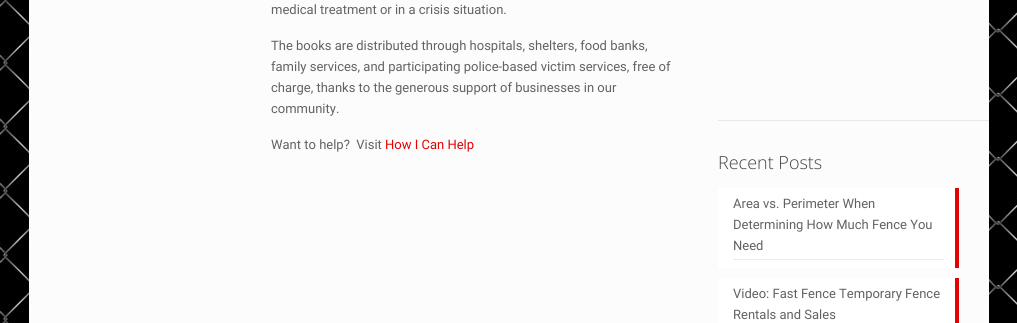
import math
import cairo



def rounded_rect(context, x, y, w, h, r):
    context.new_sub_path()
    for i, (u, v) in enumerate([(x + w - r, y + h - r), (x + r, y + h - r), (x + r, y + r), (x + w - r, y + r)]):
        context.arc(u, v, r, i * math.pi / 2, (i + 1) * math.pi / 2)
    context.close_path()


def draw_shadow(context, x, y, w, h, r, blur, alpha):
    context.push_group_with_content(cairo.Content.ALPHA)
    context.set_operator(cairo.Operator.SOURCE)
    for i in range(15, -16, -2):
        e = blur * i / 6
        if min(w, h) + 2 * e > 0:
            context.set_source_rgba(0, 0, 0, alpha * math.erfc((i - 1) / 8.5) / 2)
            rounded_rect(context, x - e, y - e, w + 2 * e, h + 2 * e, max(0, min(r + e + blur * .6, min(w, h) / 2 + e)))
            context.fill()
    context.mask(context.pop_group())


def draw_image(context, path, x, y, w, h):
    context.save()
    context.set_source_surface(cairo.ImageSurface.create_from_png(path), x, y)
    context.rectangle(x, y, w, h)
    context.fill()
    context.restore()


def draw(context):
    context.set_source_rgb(1, 1, 1)
    context.paint()
    draw_image(context, "images/1.png", 0, 0, 1017, 323)
    context.set_source_rgb(0, 0, 0)
    draw_shadow(context, 29, -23, 960, 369, 0, 7.5, 0.06)
    context.set_source_rgb(252 / 255, 252 / 255, 252 / 255)
    context.rectangle(29, 0, 960, 323)
    context.fill()
    context.set_source_rgba(0, 0, 0, 0.08)
    context.rectangle(718, 120, 271, 1)
    context.fill()
    context.set_source_rgb(1, 1, 1)
    context.rectangle(718, 188, 237, 80)
    context.fill()
    context.set_source_rgb(235 / 255, 235 / 255, 235 / 255)
    context.rectangle(733, 259, 211, 1)
    context.fill()
    context.set_source_rgb(227 / 255, 2 / 255, 2 / 255)
    context.rectangle(955, 188, 4, 80)
    context.fill()
    context.set_source_rgb(1, 1, 1)
    context.rectangle(718, 278, 237, 45)
    context.fill()
    context.set_source_rgb(227 / 255, 2 / 255, 2 / 255)
    context.rectangle(955, 278, 4, 45)
    context.fill()
    context.select_font_face("Roboto")
    context.set_font_size(13)
    context.set_source_rgb(98 / 255, 98 / 255, 98 / 255)
    context.move_to(271, 14)
    context.show_text("medical treatment or in a crisis situation.")
    context.move_to(271, 50)
    context.show_text("The books are distributed through hospitals, shelters, food banks,")
    context.move_to(271, 71)
    context.show_text("family services, and participating police-based victim services, free of")
    context.move_to(271, 92)
    context.show_text("charge, thanks to the generous support of businesses in our")
    context.move_to(271, 113)
    context.show_text("community.")
    context.move_to(271, 149)
    context.show_text("Want to help?  Visit")
    context.set_source_rgb(227 / 255, 2 / 255, 2 / 255)
    context.move_to(385, 149)
    context.show_text("How I Can Help")
    context.select_font_face("Open Sans Light")
    context.set_font_size(18)
    context.set_source_rgb(68 / 255, 68 / 255, 68 / 255)
    context.move_to(718, 169)
    context.show_text("Recent Posts")
    context.select_font_face("Roboto")
    context.set_font_size(13)
    context.set_source_rgb(98 / 255, 98 / 255, 98 / 255)
    context.move_to(733, 208)
    context.show_text("Area vs. Perimeter When")
    context.move_to(733, 229)
    context.show_text("Determining How Much Fence You")
    context.move_to(733, 250)
    context.show_text("Need")
    context.move_to(733, 298)
    context.show_text("Video: Fast Fence Temporary Fence")
    context.move_to(733, 319)
    context.show_text("Rentals and Sales")


surface = cairo.ImageSurface(cairo.Format.RGB24, 1017, 323)
context = cairo.Context(surface)
options = cairo.FontOptions()
options.set_hint_metrics(cairo.HintMetrics.OFF)
options.set_hint_style(cairo.HintStyle.NONE)
context.set_font_options(options)
context.set_miter_limit(4)
draw(context)
surface.write_to_png("out.png")
